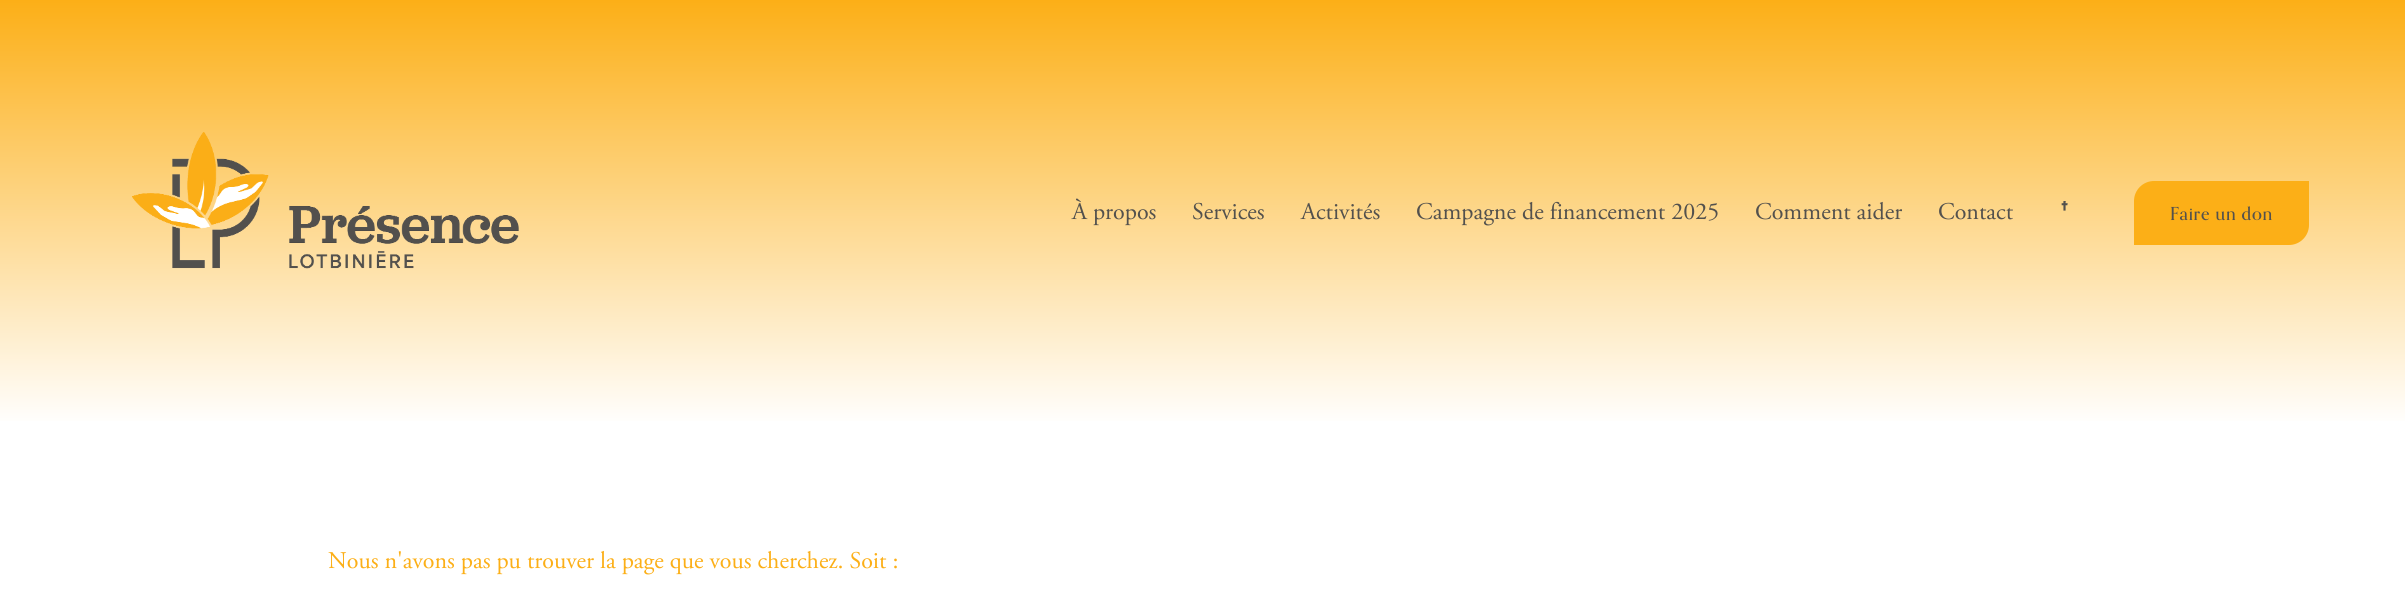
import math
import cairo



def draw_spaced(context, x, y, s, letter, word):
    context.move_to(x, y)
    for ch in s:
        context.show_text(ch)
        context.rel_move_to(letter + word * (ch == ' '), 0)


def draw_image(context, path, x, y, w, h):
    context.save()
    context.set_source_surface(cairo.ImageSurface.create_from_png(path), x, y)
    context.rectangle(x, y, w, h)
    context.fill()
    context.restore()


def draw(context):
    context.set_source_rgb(1, 1, 1)
    context.paint()
    gradient = cairo.LinearGradient(1203, 0, 1203, 426)
    gradient.add_color_stop_rgba(0, 252 / 255, 175 / 255, 23 / 255, 1)
    gradient.add_color_stop_rgba(1, 1, 1, 1, 1)
    context.set_source(gradient)
    context.rectangle(0, 0, 2405, 421)
    context.fill()
    draw_image(context, "images/1.png", 132, 132, 387, 137)
    draw_image(context, "images/2.png", 2061, 201, 7, 10)
    context.set_source_rgb(252 / 255, 175 / 255, 23 / 255)
    context.new_path()
    context.move_to(2154, 181)
    context.line_to(2309, 181)
    context.line_to(2309, 225)
    context.curve_to(2309, 236, 2300, 245, 2289, 245)
    context.line_to(2134, 245)
    context.line_to(2134, 201)
    context.curve_to(2134, 190, 2143, 181, 2154, 181)
    context.close_path()
    context.fill()
    context.select_font_face("Adobe Garamond")
    context.set_font_size(24)
    context.set_source_rgb(83 / 255, 81 / 255, 77 / 255)
    context.move_to(1072, 219)
    context.show_text("À propos")
    context.move_to(1192, 219)
    context.show_text("Services")
    context.move_to(1301, 219)
    context.show_text("Activités")
    context.move_to(1416, 219)
    context.show_text("Campagne de financement 2025")
    context.move_to(1755, 219)
    context.show_text("Comment aider")
    context.move_to(1938, 219)
    context.show_text("Contact")
    context.select_font_face("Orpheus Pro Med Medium")
    context.set_font_size(18)
    draw_spaced(context, 2170, 220, "Faire un don", 0.75, 0)
    context.select_font_face("Adobe Garamond")
    context.set_font_size(24)
    context.set_source_rgb(252 / 255, 175 / 255, 23 / 255)
    context.move_to(328, 568)
    context.show_text("Nous n'avons pas pu trouver la page que vous cherchez. Soit :")


surface = cairo.ImageSurface(cairo.Format.RGB24, 2405, 613)
context = cairo.Context(surface)
options = cairo.FontOptions()
options.set_hint_metrics(cairo.HintMetrics.OFF)
options.set_hint_style(cairo.HintStyle.NONE)
context.set_font_options(options)
context.set_miter_limit(4)
draw(context)
surface.write_to_png("out.png")
